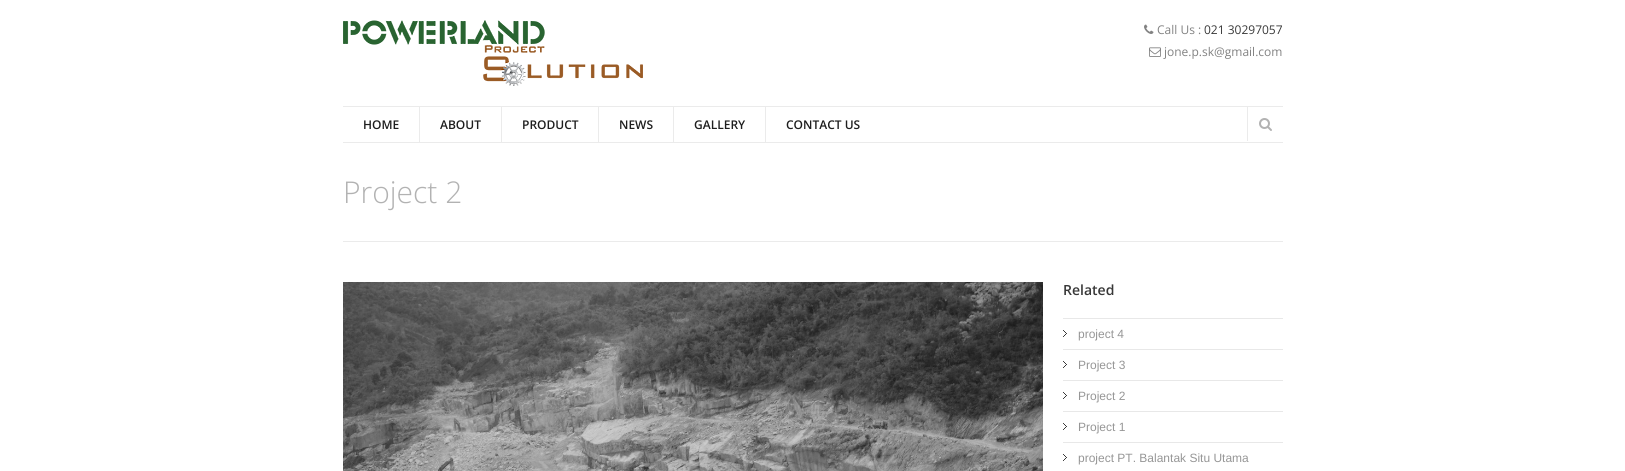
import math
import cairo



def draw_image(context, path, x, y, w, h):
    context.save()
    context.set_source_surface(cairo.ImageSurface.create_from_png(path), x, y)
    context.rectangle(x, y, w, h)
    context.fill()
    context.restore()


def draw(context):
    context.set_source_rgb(1, 1, 1)
    context.paint()
    draw_image(context, "images/1.png", 343, 20, 300, 66)
    draw_image(context, "images/2.png", 1144, 24, 10, 10)
    draw_image(context, "images/3.png", 1149, 47, 12, 10)
    context.set_source_rgb(235 / 255, 235 / 255, 235 / 255)
    context.rectangle(343, 106, 940, 1)
    context.fill()
    context.rectangle(343, 142, 940, 1)
    context.fill()
    context.rectangle(419, 107, 1, 35)
    context.fill()
    context.rectangle(501, 107, 1, 35)
    context.fill()
    context.rectangle(598, 107, 1, 35)
    context.fill()
    context.rectangle(673, 107, 1, 35)
    context.fill()
    context.rectangle(765, 107, 1, 35)
    context.fill()
    context.rectangle(1247, 107, 1, 34)
    context.fill()
    draw_image(context, "images/4.png", 1259, 118, 13, 13)
    context.rectangle(343, 241, 940, 1)
    context.fill()
    draw_image(context, "images/5.png", 343, 282, 700, 189)
    context.set_source_rgb(232 / 255, 232 / 255, 232 / 255)
    context.rectangle(1063, 318, 220, 1)
    context.fill()
    draw_image(context, "images/6.png", 1063, 330, 4, 7)
    context.rectangle(1063, 349, 220, 1)
    context.fill()
    draw_image(context, "images/6.png", 1063, 361, 4, 7)
    context.rectangle(1063, 380, 220, 1)
    context.fill()
    draw_image(context, "images/6.png", 1063, 392, 4, 7)
    context.rectangle(1063, 411, 220, 1)
    context.fill()
    draw_image(context, "images/6.png", 1063, 423, 4, 7)
    context.rectangle(1063, 442, 220, 1)
    context.fill()
    draw_image(context, "images/6.png", 1063, 454, 4, 7)
    context.select_font_face("Open Sans")
    context.set_font_size(12)
    context.set_source_rgb(130 / 255, 130 / 255, 130 / 255)
    context.move_to(1157, 34)
    context.show_text("Call Us :")
    context.set_source_rgb(56 / 255, 56 / 255, 56 / 255)
    context.move_to(1204, 34)
    context.show_text("021 30297057")
    context.set_source_rgb(130 / 255, 130 / 255, 130 / 255)
    context.move_to(1164, 56)
    context.show_text("jone.p.sk@gmail.com")
    context.select_font_face("Open Sans SemiBold")
    context.set_source_rgb(30 / 255, 30 / 255, 30 / 255)
    context.move_to(363, 129)
    context.show_text("HOME")
    context.move_to(440, 129)
    context.show_text("ABOUT")
    context.move_to(522, 129)
    context.show_text("PRODUCT")
    context.move_to(619, 129)
    context.show_text("NEWS")
    context.move_to(694, 129)
    context.show_text("GALLERY")
    context.move_to(786, 129)
    context.show_text("CONTACT US")
    context.select_font_face("Open Sans Light")
    context.set_font_size(30)
    context.set_source_rgb(178 / 255, 178 / 255, 178 / 255)
    context.move_to(343, 203)
    context.show_text("Project 2")
    context.select_font_face("Open Sans SemiBold")
    context.set_font_size(14)
    context.set_source_rgb(56 / 255, 56 / 255, 56 / 255)
    context.move_to(1063, 295)
    context.show_text("Related")
    context.select_font_face("Liberation Sans")
    context.set_font_size(12)
    context.set_source_rgb(150 / 255, 150 / 255, 150 / 255)
    context.move_to(1078, 338)
    context.show_text("project 4")
    context.move_to(1078, 369)
    context.show_text("Project 3")
    context.move_to(1078, 400)
    context.show_text("Project 2")
    context.move_to(1078, 431)
    context.show_text("Project 1")
    context.move_to(1078, 462)
    context.show_text("project PT. Balantak Situ Utama")


surface = cairo.ImageSurface(cairo.Format.RGB24, 1625, 471)
context = cairo.Context(surface)
options = cairo.FontOptions()
options.set_hint_metrics(cairo.HintMetrics.OFF)
options.set_hint_style(cairo.HintStyle.NONE)
context.set_font_options(options)
context.set_miter_limit(4)
draw(context)
surface.write_to_png("out.png")
